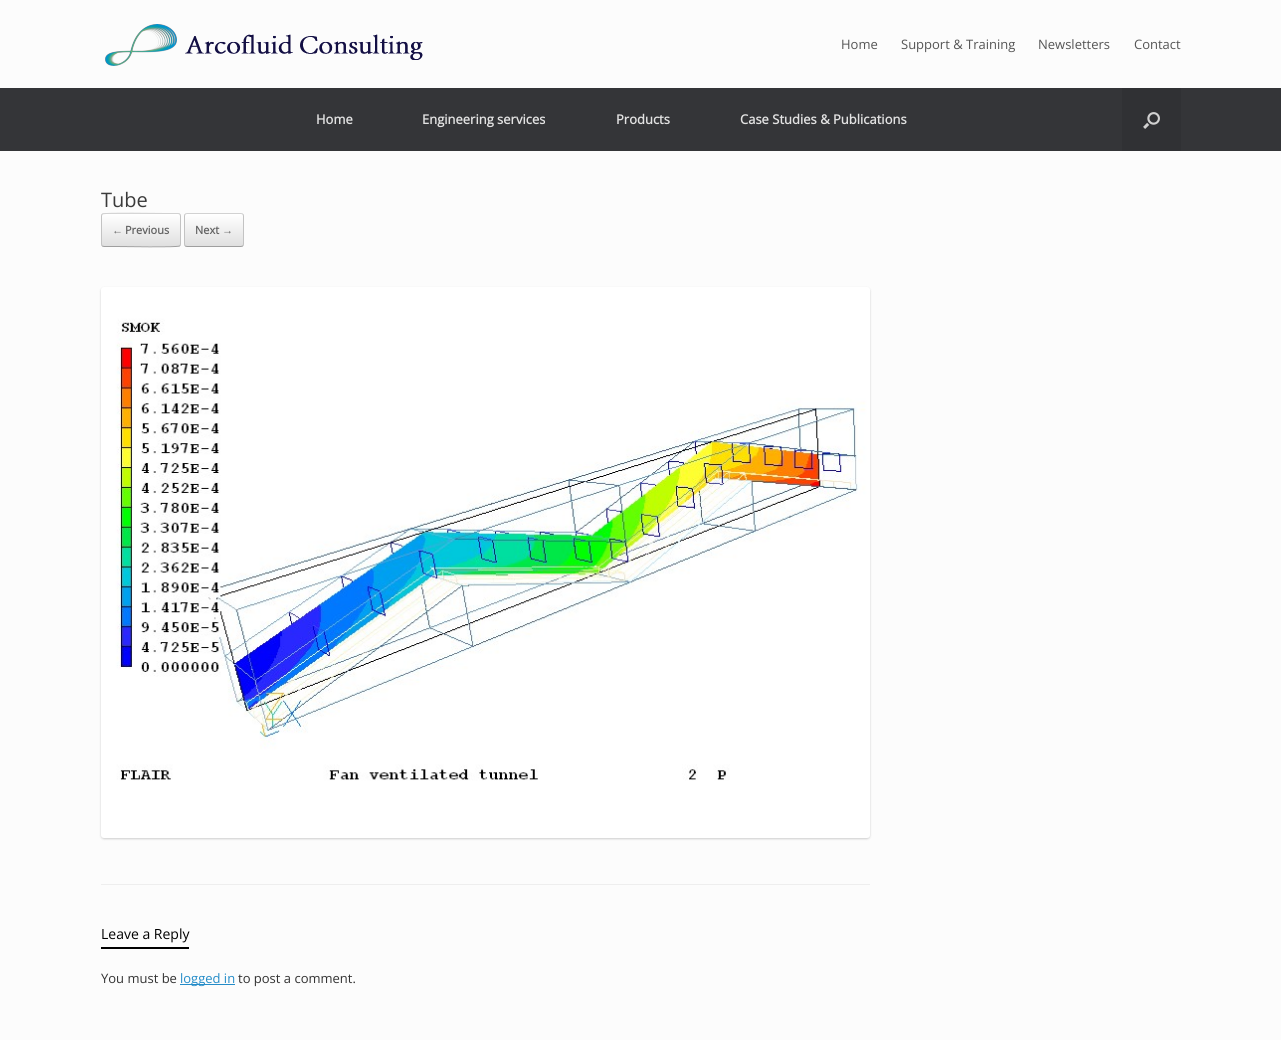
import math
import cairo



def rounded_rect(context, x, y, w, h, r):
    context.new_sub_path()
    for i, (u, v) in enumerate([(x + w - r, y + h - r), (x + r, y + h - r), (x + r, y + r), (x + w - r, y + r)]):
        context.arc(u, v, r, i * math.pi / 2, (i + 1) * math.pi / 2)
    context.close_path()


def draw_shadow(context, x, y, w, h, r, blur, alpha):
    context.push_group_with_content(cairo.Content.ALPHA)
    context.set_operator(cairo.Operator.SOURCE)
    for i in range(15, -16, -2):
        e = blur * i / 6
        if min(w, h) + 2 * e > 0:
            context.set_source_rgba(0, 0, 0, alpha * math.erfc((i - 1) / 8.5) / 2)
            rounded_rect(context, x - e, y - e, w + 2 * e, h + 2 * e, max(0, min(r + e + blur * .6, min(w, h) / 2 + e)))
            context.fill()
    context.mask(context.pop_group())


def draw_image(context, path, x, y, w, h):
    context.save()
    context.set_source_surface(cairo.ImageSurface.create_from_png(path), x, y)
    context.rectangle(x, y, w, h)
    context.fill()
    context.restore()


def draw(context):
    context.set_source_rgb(252 / 255, 252 / 255, 252 / 255)
    context.paint()
    draw_image(context, "images/1.png", 105, 24, 318, 42)
    context.set_source_rgb(52 / 255, 53 / 255, 56 / 255)
    context.rectangle(0, 88, 1281, 63)
    context.fill()
    context.set_source_rgb(48 / 255, 49 / 255, 52 / 255)
    context.rectangle(1122, 88, 59, 63)
    context.fill()
    draw_image(context, "images/2.png", 1143, 112, 17, 17)
    context.set_source_rgb(238 / 255, 238 / 255, 238 / 255)
    context.rectangle(101, 884, 769, 1)
    context.fill()
    context.save()
    rounded_rect(context, 101, 213, 80, 34, 3)
    context.clip()
    gradient = cairo.LinearGradient(102, 214, 102, 182)
    gradient.add_color_stop_rgba(0, 223 / 255, 223 / 255, 223 / 255, 1)
    gradient.add_color_stop_rgba(1, 1, 1, 1, 1)
    context.set_source(gradient)
    context.rectangle(101, 213, 80, 1)
    context.fill()
    gradient = cairo.LinearGradient(102, 246, 102, 214)
    gradient.add_color_stop_rgba(0, 223 / 255, 223 / 255, 223 / 255, 1)
    gradient.add_color_stop_rgba(1, 1, 1, 1, 1)
    context.set_source(gradient)
    context.rectangle(101, 214, 80, 32)
    context.fill()
    gradient = cairo.LinearGradient(102, 278, 102, 246)
    gradient.add_color_stop_rgba(0, 223 / 255, 223 / 255, 223 / 255, 1)
    gradient.add_color_stop_rgba(1, 1, 1, 1, 1)
    context.set_source(gradient)
    context.rectangle(101, 246, 80, 1)
    context.fill()
    context.restore()
    context.new_path()
    context.move_to(102, 214)
    context.line_to(102.5, 214)
    context.curve_to(104.5, 212.5, 159, 213.5, 165.5, 213.5)
    context.line_to(178, 213.5)
    context.line_to(180, 214)
    context.set_source_rgb(210 / 255, 210 / 255, 210 / 255)
    context.set_line_width(1)
    context.stroke()
    context.new_path()
    context.move_to(180, 214)
    context.curve_to(180, 214.5, 180.5, 215.5, 180.5, 216)
    context.line_to(180.5, 244)
    context.curve_to(180.5, 244.5, 180, 245.5, 180, 246)
    context.set_source_rgb(195 / 255, 195 / 255, 195 / 255)
    context.stroke()
    context.new_path()
    context.move_to(180, 246)
    context.line_to(179.5, 246)
    context.curve_to(177.5, 247.5, 123, 246.5, 116.5, 246.5)
    context.line_to(104, 246.5)
    context.line_to(102, 246)
    context.set_source_rgb(159 / 255, 159 / 255, 159 / 255)
    context.stroke()
    context.new_path()
    context.move_to(102, 246)
    context.curve_to(102, 245.5, 101.5, 244.5, 101.5, 244)
    context.line_to(101.5, 216)
    context.curve_to(101.5, 215.5, 102, 214.5, 102, 214)
    context.set_source_rgb(195 / 255, 195 / 255, 195 / 255)
    context.stroke()
    context.save()
    rounded_rect(context, 184, 213, 60, 34, 3)
    context.clip()
    gradient = cairo.LinearGradient(185, 246, 185, 214)
    gradient.add_color_stop_rgba(0, 223 / 255, 223 / 255, 223 / 255, 1)
    gradient.add_color_stop_rgba(1, 1, 1, 1, 1)
    context.set_source(gradient)
    context.rectangle(184, 214, 60, 32)
    context.fill()
    context.restore()
    context.new_path()
    context.move_to(185, 214)
    context.line_to(187, 213.5)
    context.line_to(241, 213.5)
    context.line_to(243, 214)
    context.set_source_rgb(210 / 255, 210 / 255, 210 / 255)
    context.stroke()
    context.new_path()
    context.move_to(243, 214)
    context.curve_to(243, 214.5, 243.5, 215.5, 243.5, 216)
    context.line_to(243.5, 244)
    context.curve_to(243.5, 244.5, 243, 245.5, 243, 246)
    context.set_source_rgb(195 / 255, 195 / 255, 195 / 255)
    context.stroke()
    context.new_path()
    context.move_to(243, 246)
    context.line_to(241, 246.5)
    context.line_to(187, 246.5)
    context.line_to(185, 246)
    context.set_source_rgb(159 / 255, 159 / 255, 159 / 255)
    context.stroke()
    context.new_path()
    context.move_to(185, 246)
    context.curve_to(185, 245.5, 184.5, 244.5, 184.5, 244)
    context.line_to(184.5, 216)
    context.curve_to(184.5, 215.5, 185, 214.5, 185, 214)
    context.set_source_rgb(195 / 255, 195 / 255, 195 / 255)
    context.stroke()
    context.set_source_rgb(0, 0, 0)
    draw_shadow(context, 101, 288, 769, 551, 3, 1, 0.18)
    draw_image(context, "images/3.png", 101, 287, 769, 551)
    context.set_source_rgb(0, 0, 0)
    context.rectangle(101, 947, 88, 2)
    context.fill()
    context.set_source_rgb(36 / 255, 140 / 255, 200 / 255)
    context.rectangle(180, 984, 55, 1)
    context.fill()
    context.select_font_face("Open Sans")
    context.set_font_size(13)
    context.set_source_rgb(85 / 255, 85 / 255, 85 / 255)
    context.move_to(841, 49)
    context.show_text("Home")
    context.move_to(901, 49)
    context.show_text("Support & Training")
    context.move_to(1038, 49)
    context.show_text("Newsletters")
    context.move_to(1134, 49)
    context.show_text("Contact")
    context.select_font_face("Open Sans", cairo.FontSlant.NORMAL, cairo.FontWeight.BOLD)
    context.set_source_rgb(226 / 255, 226 / 255, 226 / 255)
    context.move_to(316, 124)
    context.show_text("Home")
    context.move_to(422, 124)
    context.show_text("Engineering services")
    context.move_to(616, 124)
    context.show_text("Products")
    context.move_to(740, 124)
    context.show_text("Case Studies & Publications")
    context.select_font_face("Open Sans")
    context.set_font_size(20)
    context.set_source_rgb(59 / 255, 59 / 255, 59 / 255)
    context.move_to(101, 207)
    context.show_text("Tube")
    context.select_font_face("Liberation Serif", cairo.FontSlant.NORMAL, cairo.FontWeight.BOLD)
    context.set_font_size(11)
    context.set_source_rgb(100 / 255, 100 / 255, 100 / 255)
    context.move_to(112, 234)
    context.show_text("←")
    context.select_font_face("Open Sans", cairo.FontSlant.NORMAL, cairo.FontWeight.BOLD)
    context.move_to(125, 234)
    context.show_text("Previous")
    context.move_to(195, 234)
    context.show_text("Next")
    context.select_font_face("Liberation Serif", cairo.FontSlant.NORMAL, cairo.FontWeight.BOLD)
    context.move_to(222, 234)
    context.show_text("→")
    context.select_font_face("Open Sans")
    context.set_font_size(14)
    context.set_source_rgb(0, 0, 0)
    context.move_to(101, 939)
    context.show_text("Leave a Reply")
    context.set_font_size(13)
    context.set_source_rgb(51 / 255, 51 / 255, 51 / 255)
    context.move_to(101, 983)
    context.show_text("You must be")
    context.set_source_rgb(36 / 255, 140 / 255, 200 / 255)
    context.move_to(180, 983)
    context.show_text("logged in")
    context.set_source_rgb(51 / 255, 51 / 255, 51 / 255)
    context.move_to(238, 983)
    context.show_text("to post a comment.")


surface = cairo.ImageSurface(cairo.Format.RGB24, 1281, 1040)
context = cairo.Context(surface)
options = cairo.FontOptions()
options.set_hint_metrics(cairo.HintMetrics.OFF)
options.set_hint_style(cairo.HintStyle.NONE)
context.set_font_options(options)
context.set_miter_limit(4)
draw(context)
surface.write_to_png("out.png")
